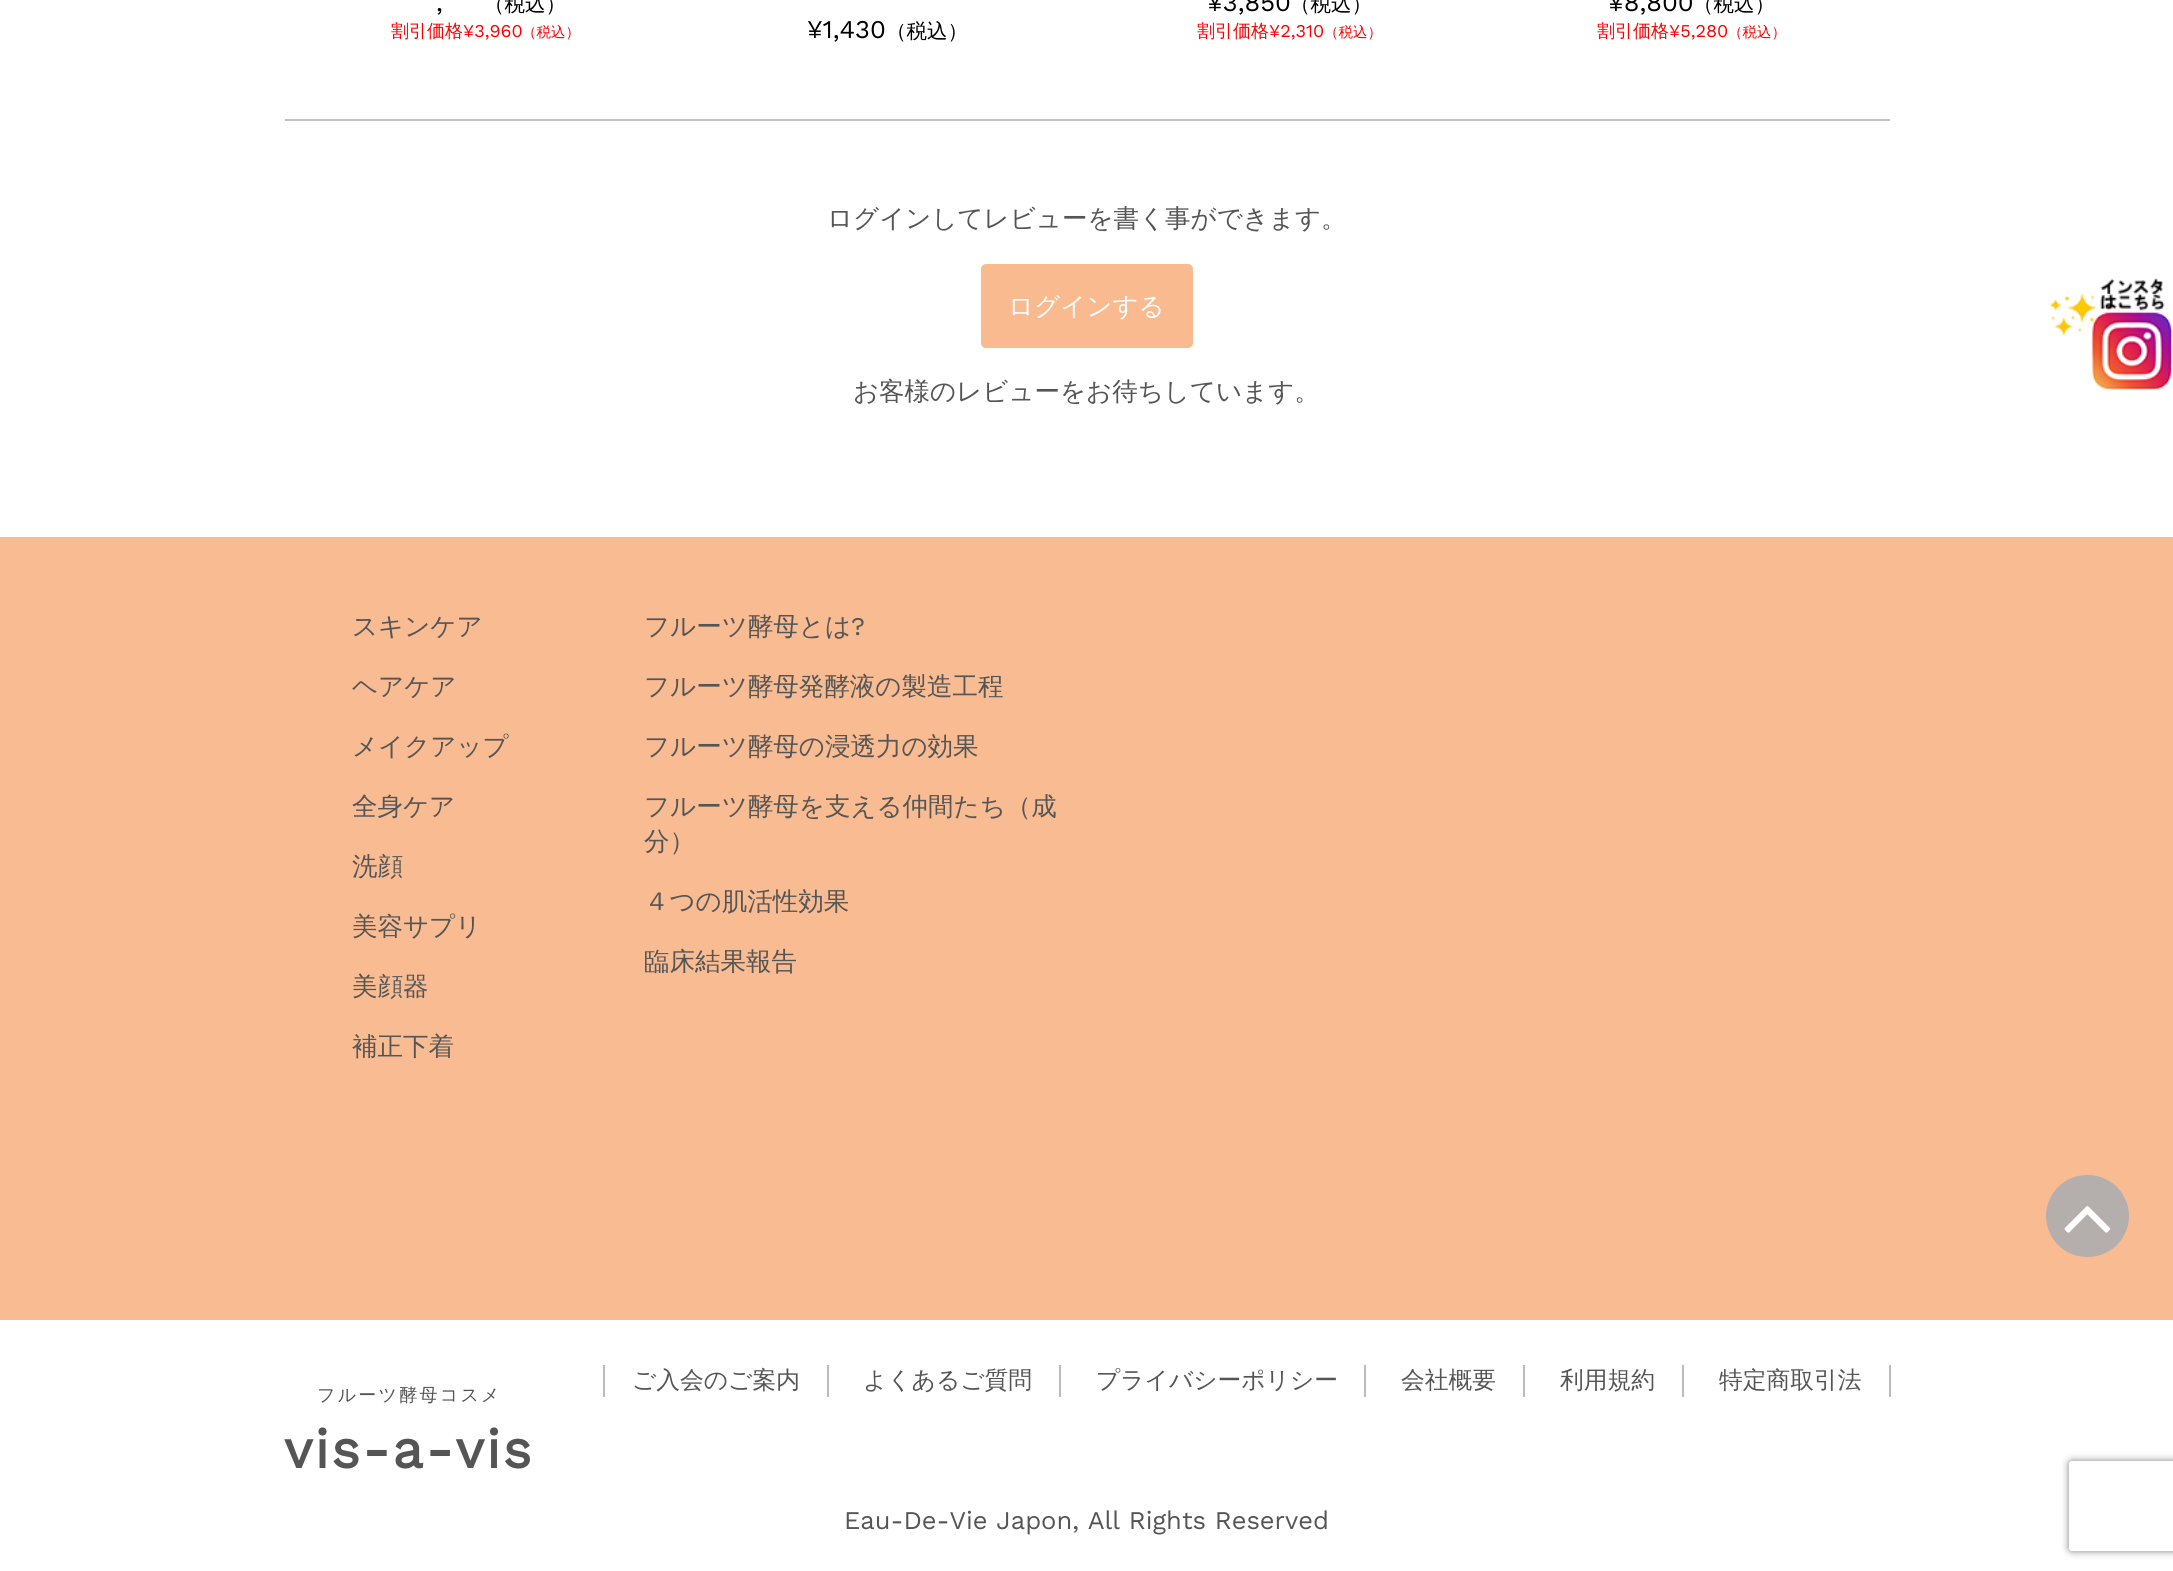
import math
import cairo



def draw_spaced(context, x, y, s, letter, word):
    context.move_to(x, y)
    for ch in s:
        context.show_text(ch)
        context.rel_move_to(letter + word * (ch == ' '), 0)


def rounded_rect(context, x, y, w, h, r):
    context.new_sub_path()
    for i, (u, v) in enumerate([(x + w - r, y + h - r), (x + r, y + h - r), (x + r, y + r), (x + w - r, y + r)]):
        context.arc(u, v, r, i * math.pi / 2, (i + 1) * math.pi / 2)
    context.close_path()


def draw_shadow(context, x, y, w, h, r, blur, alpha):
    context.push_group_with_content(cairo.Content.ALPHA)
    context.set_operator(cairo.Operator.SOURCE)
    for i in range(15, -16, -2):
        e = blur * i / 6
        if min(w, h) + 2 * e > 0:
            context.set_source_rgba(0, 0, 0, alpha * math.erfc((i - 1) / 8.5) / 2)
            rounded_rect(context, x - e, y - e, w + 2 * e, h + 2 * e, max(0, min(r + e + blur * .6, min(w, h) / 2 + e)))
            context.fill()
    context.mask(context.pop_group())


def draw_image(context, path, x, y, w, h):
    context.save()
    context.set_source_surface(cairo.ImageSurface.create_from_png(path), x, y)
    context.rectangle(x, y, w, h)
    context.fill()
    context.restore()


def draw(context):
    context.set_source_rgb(1, 1, 1)
    context.paint()
    context.set_source_rgb(193 / 255, 193 / 255, 196 / 255)
    context.rectangle(285, 119, 1605, 2)
    context.fill()
    context.set_source_rgb(249 / 255, 186 / 255, 143 / 255)
    rounded_rect(context, 981, 264, 212, 84, 5)
    context.fill()
    draw_image(context, "images/1.png", 2049, 278, 124, 112)
    context.set_source_rgb(249 / 255, 188 / 255, 146 / 255)
    context.rectangle(0, 537, 2173, 783)
    context.fill()
    context.set_source_rgb(187 / 255, 187 / 255, 188 / 255)
    context.rectangle(827, 1365, 2, 32)
    context.fill()
    context.rectangle(603, 1365, 2, 32)
    context.fill()
    context.rectangle(1059, 1365, 2, 32)
    context.fill()
    context.rectangle(1364, 1365, 2, 32)
    context.fill()
    context.rectangle(1523, 1365, 2, 32)
    context.fill()
    context.rectangle(1682, 1365, 2, 32)
    context.fill()
    context.rectangle(1889, 1365, 2, 32)
    context.fill()
    context.set_source_rgb(180 / 255, 175 / 255, 172 / 255)
    rounded_rect(context, 2046, 1175, 83, 82, 41)
    context.fill()
    draw_image(context, "images/2.png", 2064, 1206, 47, 27)
    context.save()
    context.set_fill_rule(cairo.FillRule.EVEN_ODD)
    context.new_path()
    context.move_to(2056, 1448)
    context.line_to(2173, 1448)
    context.line_to(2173, 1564)
    context.line_to(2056, 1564)
    context.close_path()
    context.move_to(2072, 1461)
    context.line_to(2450, 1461)
    context.curve_to(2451.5, 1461, 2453, 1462.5, 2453, 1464)
    context.line_to(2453, 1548)
    context.curve_to(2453, 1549.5, 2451.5, 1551, 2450, 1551)
    context.line_to(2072, 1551)
    context.curve_to(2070.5, 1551, 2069, 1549.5, 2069, 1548)
    context.line_to(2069, 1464)
    context.curve_to(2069, 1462.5, 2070.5, 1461, 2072, 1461)
    context.close_path()
    context.clip()
    context.set_source_rgb(128 / 255, 128 / 255, 128 / 255)
    draw_shadow(context, 2069, 1461, 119, 90, 3, 4, 1)
    context.restore()
    context.select_font_face("Work Sans")
    context.set_font_size(25.5)
    context.set_source_rgb(0, 0, 0)
    context.move_to(436, 11)
    context.show_text(",")
    context.select_font_face("WenQuanYi Zen Hei Medium")
    context.set_font_size(20.5)
    context.move_to(484, 11)
    context.show_text("（税込）")
    context.set_font_size(18)
    context.set_source_rgb(1, 0, 0)
    context.move_to(391, 37)
    context.show_text("割引価格")
    context.select_font_face("Work Sans")
    context.move_to(463, 37)
    context.show_text("¥3,960")
    context.select_font_face("WenQuanYi Zen Hei Medium")
    context.set_font_size(14.5)
    context.move_to(522, 37)
    context.show_text("（税込）")
    context.select_font_face("Work Sans")
    context.set_font_size(25.5)
    context.set_source_rgb(0, 0, 0)
    context.move_to(807, 38)
    context.show_text("¥1,430")
    context.select_font_face("WenQuanYi Zen Hei Medium")
    context.set_font_size(20.5)
    context.move_to(886, 38)
    context.show_text("（税込）")
    context.select_font_face("Work Sans")
    context.set_font_size(25.5)
    context.move_to(1207, 11)
    context.show_text("¥3,850")
    context.select_font_face("WenQuanYi Zen Hei Medium")
    context.set_font_size(20.5)
    context.move_to(1290, 11)
    context.show_text("（税込）")
    context.set_font_size(18)
    context.set_source_rgb(1, 0, 0)
    context.move_to(1197, 37)
    context.show_text("割引価格")
    context.select_font_face("Work Sans")
    context.move_to(1269, 37)
    context.show_text("¥2,310")
    context.select_font_face("WenQuanYi Zen Hei Medium")
    context.set_font_size(14.5)
    context.move_to(1324, 37)
    context.show_text("（税込）")
    context.select_font_face("Work Sans")
    context.set_font_size(25.5)
    context.set_source_rgb(0, 0, 0)
    context.move_to(1608, 11)
    context.show_text("¥8,800")
    context.select_font_face("WenQuanYi Zen Hei Medium")
    context.set_font_size(20.5)
    context.move_to(1693, 11)
    context.show_text("（税込）")
    context.set_font_size(18)
    context.set_source_rgb(1, 0, 0)
    context.move_to(1597, 37)
    context.show_text("割引価格")
    context.select_font_face("Work Sans")
    context.move_to(1669, 37)
    context.show_text("¥5,280")
    context.select_font_face("WenQuanYi Zen Hei Medium")
    context.set_font_size(14.5)
    context.move_to(1728, 37)
    context.show_text("（税込）")
    context.set_font_size(25.5)
    context.set_source_rgb(85 / 255, 85 / 255, 85 / 255)
    context.move_to(827, 227)
    context.show_text("ログインしてレビューを書く事ができます。")
    context.set_source_rgb(1, 1, 1)
    context.move_to(1008, 315)
    context.show_text("ログインする")
    context.set_source_rgb(85 / 255, 85 / 255, 85 / 255)
    context.move_to(853, 400)
    context.show_text("お客様のレビューをお待ちしています。")
    context.move_to(352, 635)
    context.show_text("スキンケア")
    context.move_to(352, 695)
    context.show_text("ヘアケア")
    context.move_to(352, 755)
    context.show_text("メイクアップ")
    context.move_to(352, 815)
    context.show_text("全身ケア")
    context.move_to(352, 875)
    context.show_text("洗顔")
    context.move_to(352, 935)
    context.show_text("美容サプリ")
    context.move_to(352, 995)
    context.show_text("美顔器")
    context.move_to(352, 1055)
    context.show_text("補正下着")
    context.move_to(644, 635)
    context.show_text("フルーツ酵母とは")
    context.select_font_face("Work Sans")
    context.move_to(851, 635)
    context.show_text("?")
    context.select_font_face("WenQuanYi Zen Hei Medium")
    context.move_to(644, 695)
    context.show_text("フルーツ酵母発酵液の製造工程")
    context.move_to(644, 755)
    context.show_text("フルーツ酵母の浸透力の効果")
    context.move_to(644, 815)
    context.show_text("フルーツ酵母を支える仲間たち（成")
    context.move_to(644, 850)
    context.show_text("分）")
    context.move_to(644, 910)
    context.show_text("４つの肌活性効果")
    context.move_to(644, 970)
    context.show_text("臨床結果報告")
    context.set_font_size(23.75)
    context.move_to(632, 1388)
    context.show_text("ご入会のご案内")
    context.move_to(863, 1388)
    context.show_text("よくあるご質問")
    context.move_to(1096, 1388)
    context.show_text("プライバシーポリシー")
    context.move_to(1401, 1388)
    context.show_text("会社概要")
    context.move_to(1560, 1388)
    context.show_text("利用規約")
    context.move_to(1719, 1388)
    context.show_text("特定商取引法")
    context.set_font_size(18)
    draw_spaced(context, 317, 1401, "フルーツ酵母コスメ", 2.25, 0)
    context.select_font_face("Work Sans", cairo.FontSlant.NORMAL, cairo.FontWeight.BOLD)
    context.set_font_size(54.5)
    draw_spaced(context, 284, 1468, "vis-a-vis", 2.25, 0)
    context.select_font_face("Work Sans")
    context.set_font_size(25.5)
    context.move_to(844, 1529)
    context.show_text("Eau-De-Vie Japon, All Rights Reserved")


surface = cairo.ImageSurface(cairo.Format.RGB24, 2173, 1571)
context = cairo.Context(surface)
options = cairo.FontOptions()
options.set_hint_metrics(cairo.HintMetrics.OFF)
options.set_hint_style(cairo.HintStyle.NONE)
context.set_font_options(options)
context.set_miter_limit(4)
draw(context)
surface.write_to_png("out.png")
